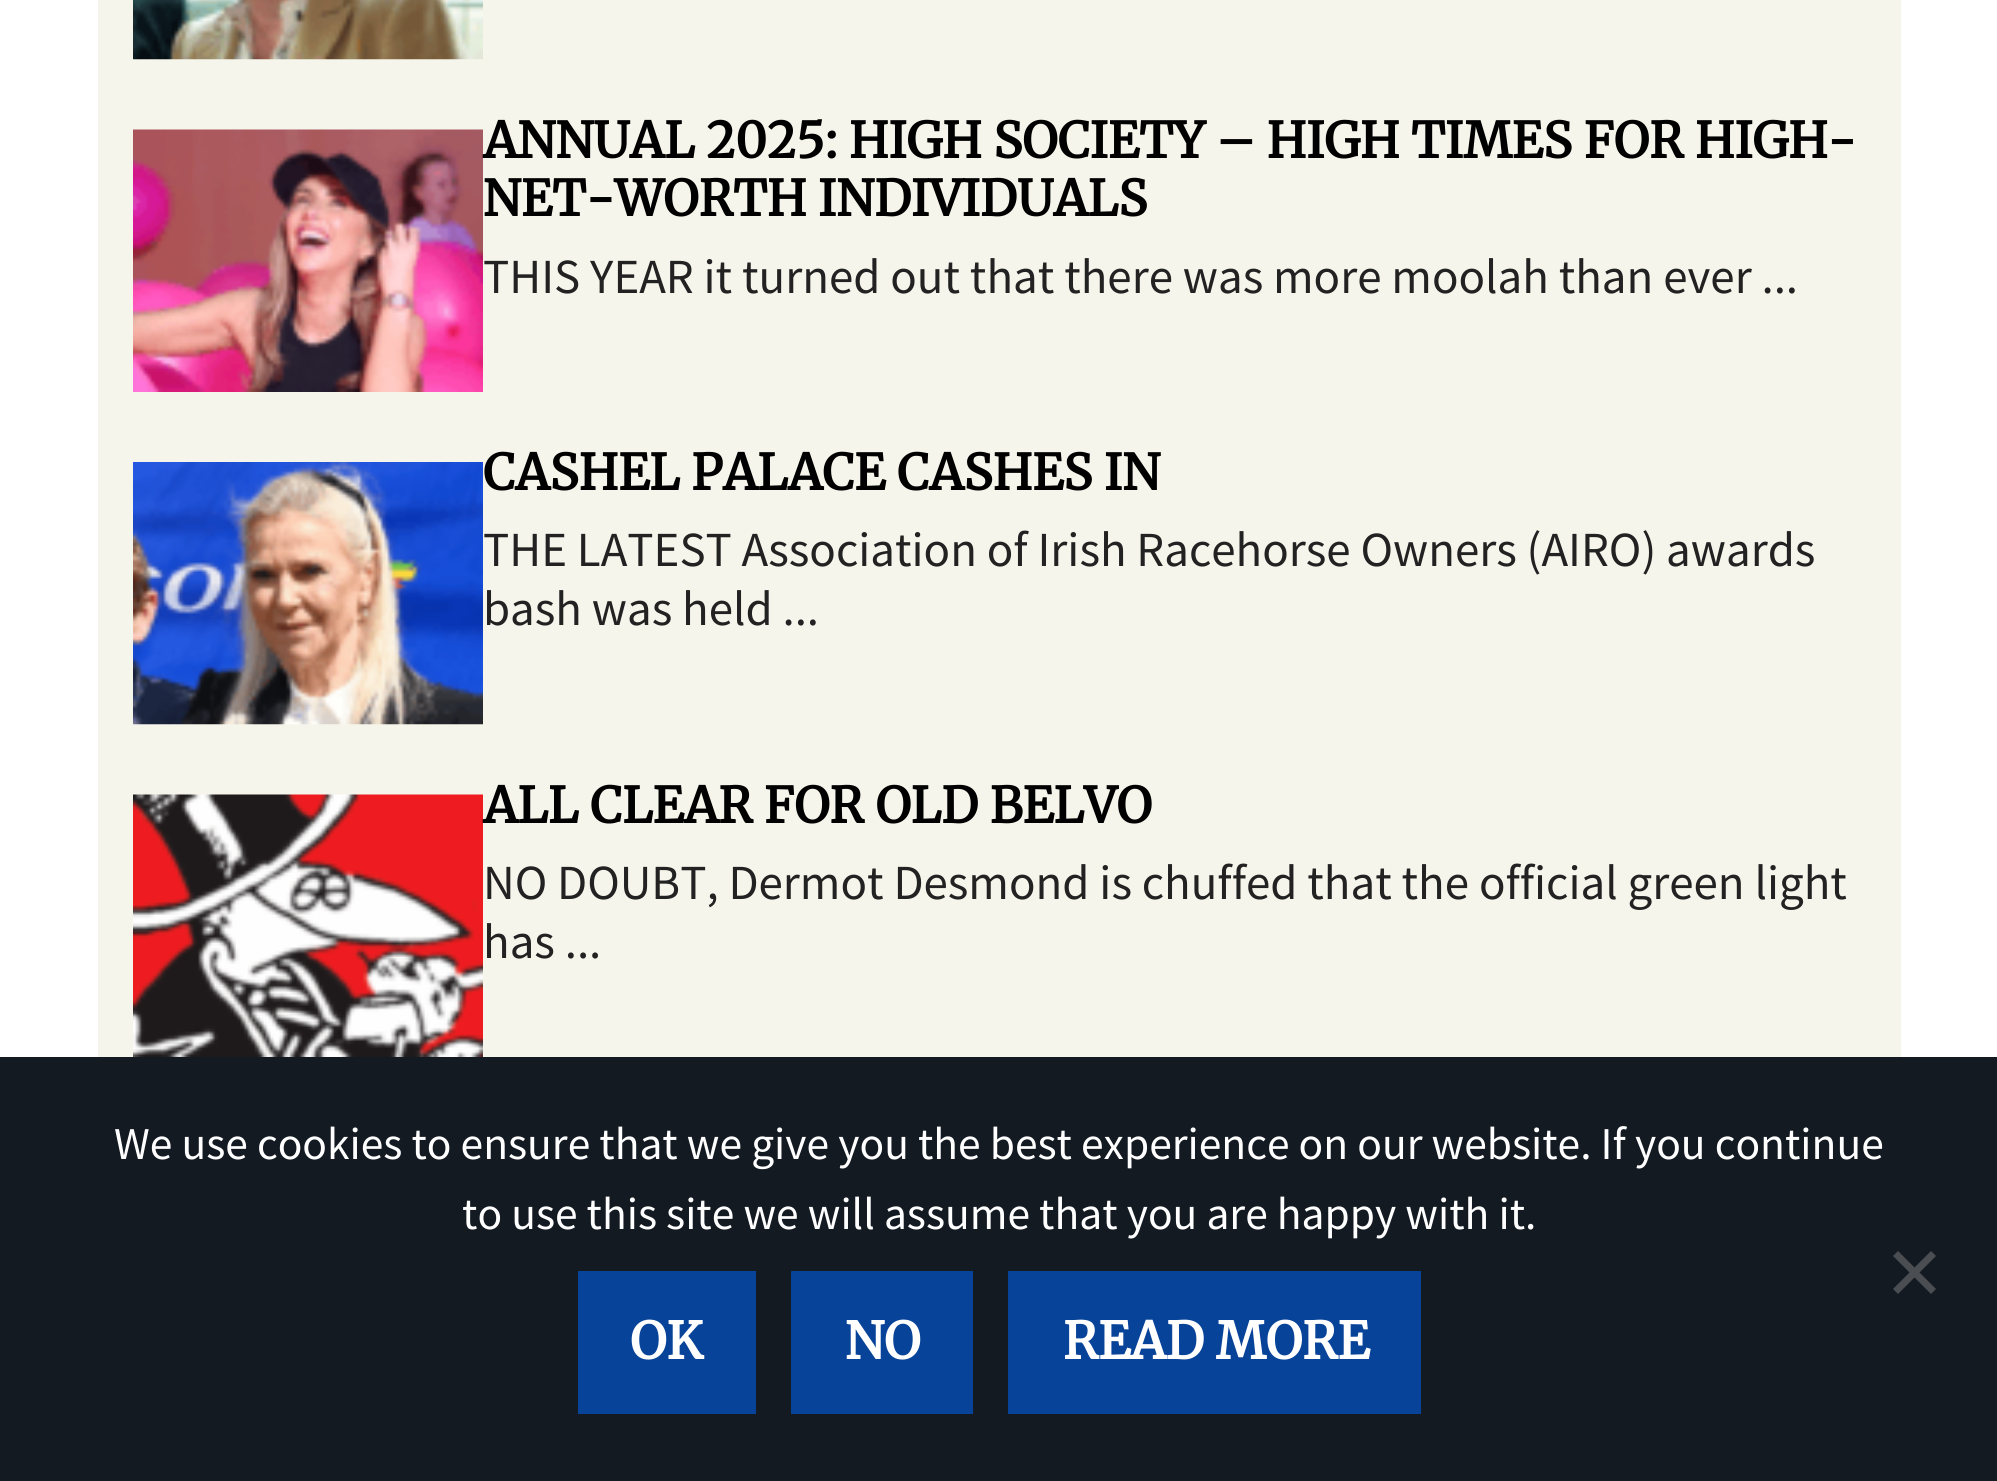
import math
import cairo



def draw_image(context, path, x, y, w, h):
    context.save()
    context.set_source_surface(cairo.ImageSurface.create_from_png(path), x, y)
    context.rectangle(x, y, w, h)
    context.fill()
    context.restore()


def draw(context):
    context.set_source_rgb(1, 1, 1)
    context.paint()
    context.set_source_rgb(246 / 255, 245 / 255, 235 / 255)
    context.rectangle(98, 0, 1803, 1057)
    context.fill()
    draw_image(context, "images/1.png", 133, 0, 350, 60)
    draw_image(context, "images/2.png", 133, 129, 350, 263)
    draw_image(context, "images/3.png", 133, 462, 350, 263)
    draw_image(context, "images/4.png", 133, 794, 350, 263)
    context.set_source_rgb(19 / 255, 26 / 255, 34 / 255)
    context.rectangle(0, 1057, 1997, 424)
    context.fill()
    context.set_source_rgb(74 / 255, 77 / 255, 81 / 255)
    context.new_path()
    context.move_to(1931, 1251)
    context.line_to(1936, 1256)
    context.line_to(1898, 1294)
    context.line_to(1893, 1289)
    context.close_path()
    context.fill()
    context.new_path()
    context.move_to(1893, 1256)
    context.line_to(1898, 1251)
    context.line_to(1936, 1289)
    context.line_to(1931, 1294)
    context.close_path()
    context.fill()
    context.set_source_rgb(7 / 255, 67 / 255, 153 / 255)
    context.rectangle(578, 1271, 178, 143)
    context.fill()
    context.rectangle(791, 1271, 182, 143)
    context.fill()
    context.rectangle(1008, 1271, 413, 143)
    context.fill()
    context.select_font_face("Merriweather", cairo.FontSlant.NORMAL, cairo.FontWeight.BOLD)
    context.set_font_size(49)
    context.set_source_rgb(0, 0, 0)
    context.move_to(483, 158)
    context.show_text("ANNUAL 2025: HIGH SOCIETY – HIGH TIMES FOR HIGH-")
    context.move_to(483, 216)
    context.show_text("NET-WORTH INDIVIDUALS")
    context.select_font_face("Source Sans Pro")
    context.set_source_rgb(34 / 255, 34 / 255, 34 / 255)
    context.move_to(483, 293)
    context.show_text("THIS YEAR it turned out that there was more moolah than ever ...")
    context.select_font_face("Merriweather", cairo.FontSlant.NORMAL, cairo.FontWeight.BOLD)
    context.set_source_rgb(0, 0, 0)
    context.move_to(483, 490)
    context.show_text("CASHEL PALACE CASHES IN")
    context.select_font_face("Source Sans Pro")
    context.set_source_rgb(34 / 255, 34 / 255, 34 / 255)
    context.move_to(483, 566)
    context.show_text("THE LATEST Association of Irish Racehorse Owners (AIRO) awards")
    context.move_to(483, 625)
    context.show_text("bash was held ...")
    context.select_font_face("Merriweather", cairo.FontSlant.NORMAL, cairo.FontWeight.BOLD)
    context.set_source_rgb(0, 0, 0)
    context.move_to(483, 823)
    context.show_text("ALL CLEAR FOR OLD BELVO")
    context.select_font_face("Source Sans Pro")
    context.set_source_rgb(34 / 255, 34 / 255, 34 / 255)
    context.move_to(483, 899)
    context.show_text("NO DOUBT, Dermot Desmond is chuffed that the official green light")
    context.move_to(483, 958)
    context.show_text("has ...")
    context.set_font_size(45.5)
    context.set_source_rgb(1, 1, 1)
    context.move_to(114, 1159)
    context.show_text("We use cookies to ensure that we give you the best experience on our website. If you continue")
    context.move_to(462, 1229)
    context.show_text("to use this site we will assume that you are happy with it.")
    context.select_font_face("Merriweather", cairo.FontSlant.NORMAL, cairo.FontWeight.BOLD)
    context.set_font_size(50.5)
    context.move_to(630, 1359)
    context.show_text("OK")
    context.move_to(845, 1359)
    context.show_text("NO")
    context.move_to(1063, 1359)
    context.show_text("READ MORE")


surface = cairo.ImageSurface(cairo.Format.RGB24, 1997, 1481)
context = cairo.Context(surface)
options = cairo.FontOptions()
options.set_hint_metrics(cairo.HintMetrics.OFF)
options.set_hint_style(cairo.HintStyle.NONE)
context.set_font_options(options)
context.set_miter_limit(4)
draw(context)
surface.write_to_png("out.png")
